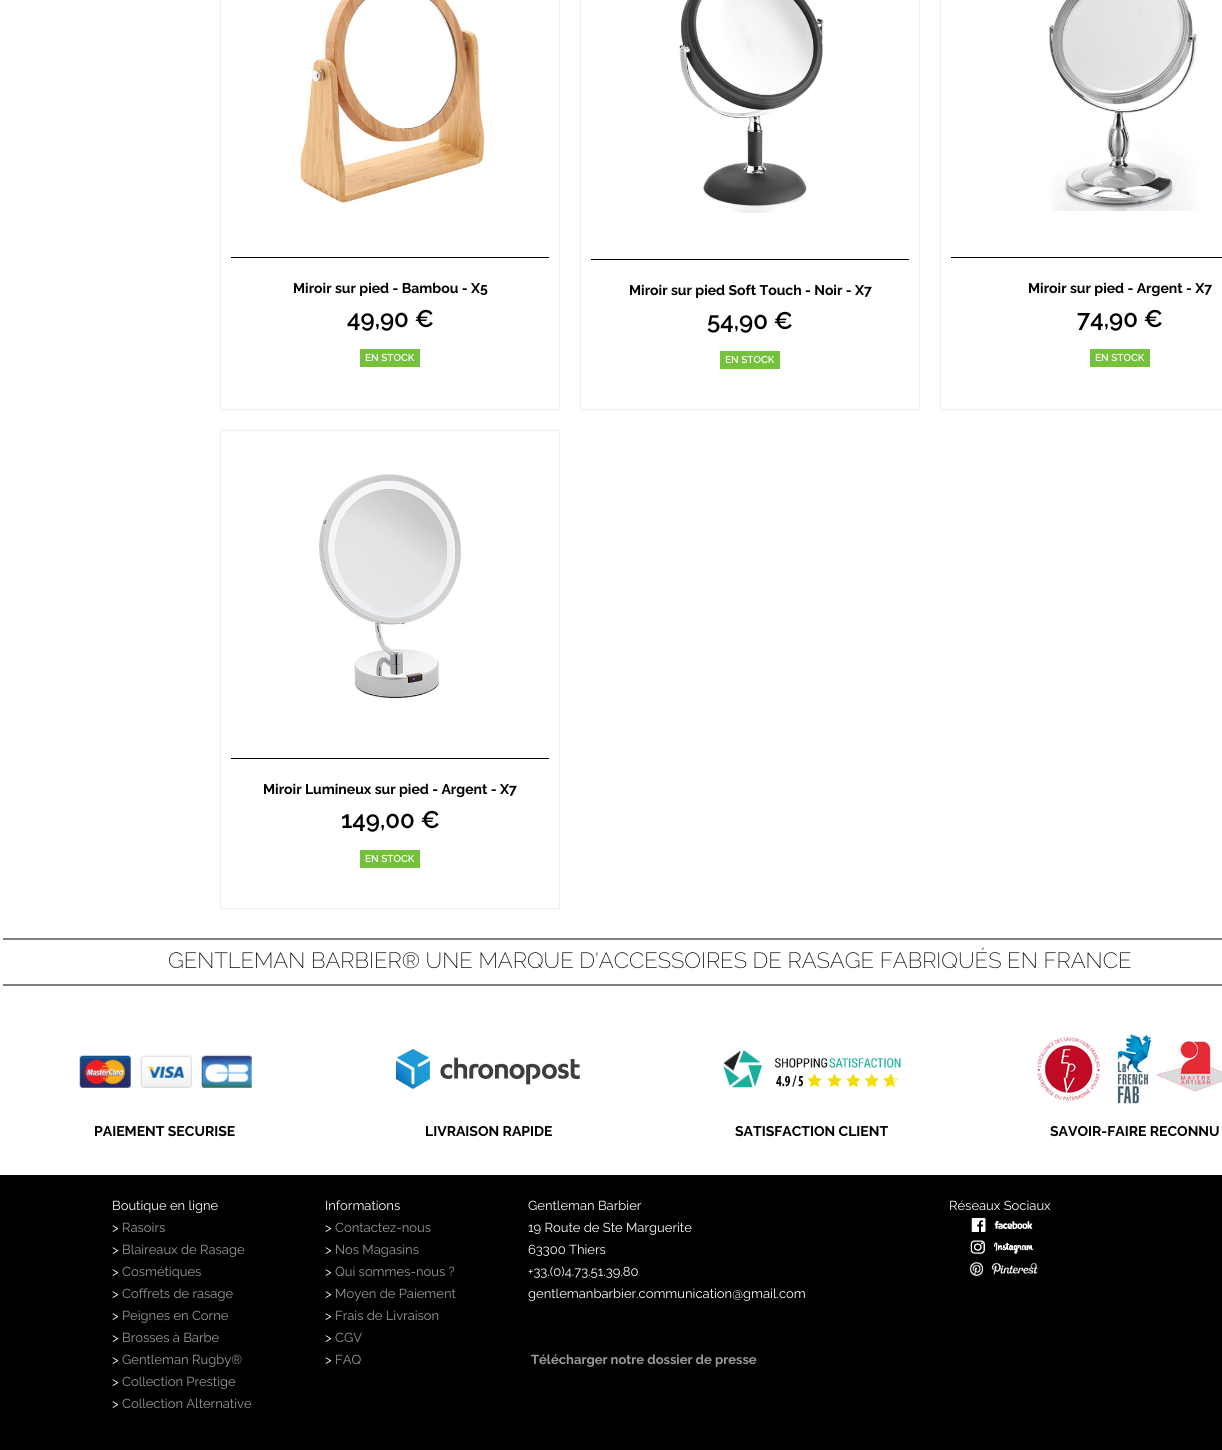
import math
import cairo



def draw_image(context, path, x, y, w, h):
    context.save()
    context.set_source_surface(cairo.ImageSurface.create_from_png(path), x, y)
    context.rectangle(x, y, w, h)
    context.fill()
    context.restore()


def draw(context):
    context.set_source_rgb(1, 1, 1)
    context.paint()
    context.rectangle(220.5, -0.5, 339, 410)
    context.set_source_rgb(238 / 255, 238 / 255, 238 / 255)
    context.set_line_width(1)
    context.stroke()
    context.set_source_rgb(0, 0, 0)
    context.rectangle(231, 257, 318, 1)
    context.fill()
    draw_image(context, "images/1.png", 299, 0, 186, 205)
    context.set_source_rgb(116 / 255, 193 / 255, 59 / 255)
    context.rectangle(360, 349, 60, 18)
    context.fill()
    context.rectangle(580.5, -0.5, 339, 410)
    context.set_source_rgb(238 / 255, 238 / 255, 238 / 255)
    context.stroke()
    context.set_source_rgb(0, 0, 0)
    context.rectangle(591, 259, 318, 1)
    context.fill()
    draw_image(context, "images/2.png", 679, 0, 145, 213)
    context.set_source_rgb(116 / 255, 193 / 255, 59 / 255)
    context.rectangle(720, 351, 60, 18)
    context.fill()
    context.rectangle(940.5, -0.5, 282, 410)
    context.set_source_rgb(238 / 255, 238 / 255, 238 / 255)
    context.stroke()
    context.set_source_rgb(0, 0, 0)
    context.rectangle(951, 257, 271, 1)
    context.fill()
    draw_image(context, "images/3.png", 1049, 0, 149, 211)
    context.set_source_rgb(116 / 255, 193 / 255, 59 / 255)
    context.rectangle(1090, 349, 60, 18)
    context.fill()
    context.rectangle(220.5, 430.5, 339, 478)
    context.set_source_rgb(238 / 255, 238 / 255, 238 / 255)
    context.stroke()
    context.set_source_rgb(0, 0, 0)
    context.rectangle(231, 758, 318, 1)
    context.fill()
    draw_image(context, "images/4.png", 319, 474, 143, 225)
    context.set_source_rgb(116 / 255, 193 / 255, 59 / 255)
    context.rectangle(360, 850, 60, 18)
    context.fill()
    context.set_source_rgb(128 / 255, 128 / 255, 128 / 255)
    context.rectangle(3, 938, 1219, 2)
    context.fill()
    context.rectangle(3, 984, 1219, 2)
    context.fill()
    draw_image(context, "images/5.png", 79, 1055, 175, 33)
    draw_image(context, "images/6.png", 396, 1049, 184, 40)
    draw_image(context, "images/7.png", 723, 1050, 179, 38)
    draw_image(context, "images/8.png", 1037, 1034, 185, 70)
    context.set_source_rgb(0, 0, 0)
    context.rectangle(0, 1175, 1222, 275)
    context.fill()
    draw_image(context, "images/9.png", 971, 1218, 62, 14)
    draw_image(context, "images/10.png", 970, 1240, 64, 14)
    draw_image(context, "images/11.png", 969, 1262, 69, 14)
    context.select_font_face("Raleway", cairo.FontSlant.NORMAL, cairo.FontWeight.BOLD)
    context.set_font_size(14)
    context.move_to(293, 293)
    context.show_text("Miroir sur pied - Bambou - X5")
    context.select_font_face("Raleway SemiBold")
    context.set_font_size(24)
    context.move_to(347, 327)
    context.show_text("49,90 €")
    context.set_font_size(10)
    context.set_source_rgb(1, 1, 1)
    context.move_to(365, 361)
    context.show_text("EN STOCK")
    context.select_font_face("Raleway", cairo.FontSlant.NORMAL, cairo.FontWeight.BOLD)
    context.set_font_size(14)
    context.set_source_rgb(0, 0, 0)
    context.move_to(629, 295)
    context.show_text("Miroir sur pied Soft Touch - Noir - X7")
    context.select_font_face("Raleway SemiBold")
    context.set_font_size(24)
    context.move_to(707, 329)
    context.show_text("54,90 €")
    context.set_font_size(10)
    context.set_source_rgb(1, 1, 1)
    context.move_to(725, 363)
    context.show_text("EN STOCK")
    context.select_font_face("Raleway", cairo.FontSlant.NORMAL, cairo.FontWeight.BOLD)
    context.set_font_size(14)
    context.set_source_rgb(0, 0, 0)
    context.move_to(1028, 293)
    context.show_text("Miroir sur pied - Argent - X7")
    context.select_font_face("Raleway SemiBold")
    context.set_font_size(24)
    context.move_to(1077, 327)
    context.show_text("74,90 €")
    context.set_font_size(10)
    context.set_source_rgb(1, 1, 1)
    context.move_to(1095, 361)
    context.show_text("EN STOCK")
    context.select_font_face("Raleway", cairo.FontSlant.NORMAL, cairo.FontWeight.BOLD)
    context.set_font_size(14)
    context.set_source_rgb(0, 0, 0)
    context.move_to(263, 794)
    context.show_text("Miroir Lumineux sur pied - Argent - X7")
    context.select_font_face("Raleway SemiBold")
    context.set_font_size(24)
    context.move_to(341, 828)
    context.show_text("149,00 €")
    context.set_font_size(10)
    context.set_source_rgb(1, 1, 1)
    context.move_to(365, 862)
    context.show_text("EN STOCK")
    context.select_font_face("Raleway ExtraLight")
    context.set_font_size(22)
    context.set_source_rgb(0, 0, 0)
    context.move_to(168, 968)
    context.show_text("GENTLEMAN BARBIER® UNE MARQUE D'ACCESSOIRES DE RASAGE FABRIQUÉS EN FRANCE")
    context.select_font_face("Raleway", cairo.FontSlant.NORMAL, cairo.FontWeight.BOLD)
    context.set_font_size(14)
    context.move_to(94, 1136)
    context.show_text("PAIEMENT SECURISE")
    context.move_to(425, 1136)
    context.show_text("LIVRAISON RAPIDE")
    context.move_to(735, 1136)
    context.show_text("SATISFACTION CLIENT")
    context.move_to(1050, 1136)
    context.show_text("SAVOIR-FAIRE RECONNU")
    context.select_font_face("Raleway")
    context.set_font_size(13)
    context.set_source_rgb(1, 1, 1)
    context.move_to(112, 1210)
    context.show_text("Boutique en ligne")
    context.move_to(325, 1210)
    context.show_text("Informations")
    context.move_to(528, 1210)
    context.show_text("Gentleman Barbier")
    context.move_to(949, 1210)
    context.show_text("Réseaux Sociaux")
    context.move_to(112, 1232)
    context.show_text(">")
    context.set_source_rgb(153 / 255, 153 / 255, 153 / 255)
    context.move_to(122, 1232)
    context.show_text("Rasoirs")
    context.set_source_rgb(1, 1, 1)
    context.move_to(325, 1232)
    context.show_text(">")
    context.set_source_rgb(153 / 255, 153 / 255, 153 / 255)
    context.move_to(335, 1232)
    context.show_text("Contactez-nous")
    context.set_source_rgb(1, 1, 1)
    context.move_to(528, 1232)
    context.show_text("19 Route de Ste Marguerite")
    context.move_to(112, 1254)
    context.show_text(">")
    context.set_source_rgb(153 / 255, 153 / 255, 153 / 255)
    context.move_to(122, 1254)
    context.show_text("Blaireaux de Rasage")
    context.set_source_rgb(1, 1, 1)
    context.move_to(325, 1254)
    context.show_text(">")
    context.set_source_rgb(153 / 255, 153 / 255, 153 / 255)
    context.move_to(335, 1254)
    context.show_text("Nos Magasins")
    context.set_source_rgb(1, 1, 1)
    context.move_to(528, 1254)
    context.show_text("63300 Thiers")
    context.move_to(112, 1276)
    context.show_text(">")
    context.set_source_rgb(153 / 255, 153 / 255, 153 / 255)
    context.move_to(122, 1276)
    context.show_text("Cosmétiques")
    context.set_source_rgb(1, 1, 1)
    context.move_to(325, 1276)
    context.show_text(">")
    context.set_source_rgb(153 / 255, 153 / 255, 153 / 255)
    context.move_to(335, 1276)
    context.show_text("Qui sommes-nous ?")
    context.set_source_rgb(1, 1, 1)
    context.move_to(528, 1276)
    context.show_text("+33.(0)4.73.51.39.80")
    context.move_to(112, 1298)
    context.show_text(">")
    context.set_source_rgb(153 / 255, 153 / 255, 153 / 255)
    context.move_to(122, 1298)
    context.show_text("Coffrets de rasage")
    context.set_source_rgb(1, 1, 1)
    context.move_to(325, 1298)
    context.show_text(">")
    context.set_source_rgb(153 / 255, 153 / 255, 153 / 255)
    context.move_to(335, 1298)
    context.show_text("Moyen de Paiement")
    context.set_source_rgb(1, 1, 1)
    context.move_to(528, 1298)
    context.show_text("gentlemanbarbier.communication@gmail.com")
    context.move_to(112, 1320)
    context.show_text(">")
    context.set_source_rgb(153 / 255, 153 / 255, 153 / 255)
    context.move_to(122, 1320)
    context.show_text("Peignes en Corne")
    context.set_source_rgb(1, 1, 1)
    context.move_to(325, 1320)
    context.show_text(">")
    context.set_source_rgb(153 / 255, 153 / 255, 153 / 255)
    context.move_to(335, 1320)
    context.show_text("Frais de Livraison")
    context.set_source_rgb(1, 1, 1)
    context.move_to(112, 1342)
    context.show_text(">")
    context.set_source_rgb(153 / 255, 153 / 255, 153 / 255)
    context.move_to(122, 1342)
    context.show_text("Brosses à Barbe")
    context.set_source_rgb(1, 1, 1)
    context.move_to(325, 1342)
    context.show_text(">")
    context.set_source_rgb(153 / 255, 153 / 255, 153 / 255)
    context.move_to(335, 1342)
    context.show_text("CGV")
    context.set_source_rgb(1, 1, 1)
    context.move_to(112, 1364)
    context.show_text(">")
    context.set_source_rgb(153 / 255, 153 / 255, 153 / 255)
    context.move_to(122, 1364)
    context.show_text("Gentleman Rugby®")
    context.set_source_rgb(1, 1, 1)
    context.move_to(325, 1364)
    context.show_text(">")
    context.set_source_rgb(153 / 255, 153 / 255, 153 / 255)
    context.move_to(335, 1364)
    context.show_text("FAQ")
    context.select_font_face("Raleway", cairo.FontSlant.NORMAL, cairo.FontWeight.BOLD)
    context.move_to(531, 1364)
    context.show_text("Télécharger notre dossier de presse")
    context.select_font_face("Raleway")
    context.set_source_rgb(1, 1, 1)
    context.move_to(112, 1386)
    context.show_text(">")
    context.set_source_rgb(153 / 255, 153 / 255, 153 / 255)
    context.move_to(122, 1386)
    context.show_text("Collection Prestige")
    context.set_source_rgb(1, 1, 1)
    context.move_to(112, 1408)
    context.show_text(">")
    context.set_source_rgb(153 / 255, 153 / 255, 153 / 255)
    context.move_to(122, 1408)
    context.show_text("Collection Alternative")


surface = cairo.ImageSurface(cairo.Format.RGB24, 1222, 1450)
context = cairo.Context(surface)
options = cairo.FontOptions()
options.set_hint_metrics(cairo.HintMetrics.OFF)
options.set_hint_style(cairo.HintStyle.NONE)
context.set_font_options(options)
context.set_miter_limit(4)
draw(context)
surface.write_to_png("out.png")
